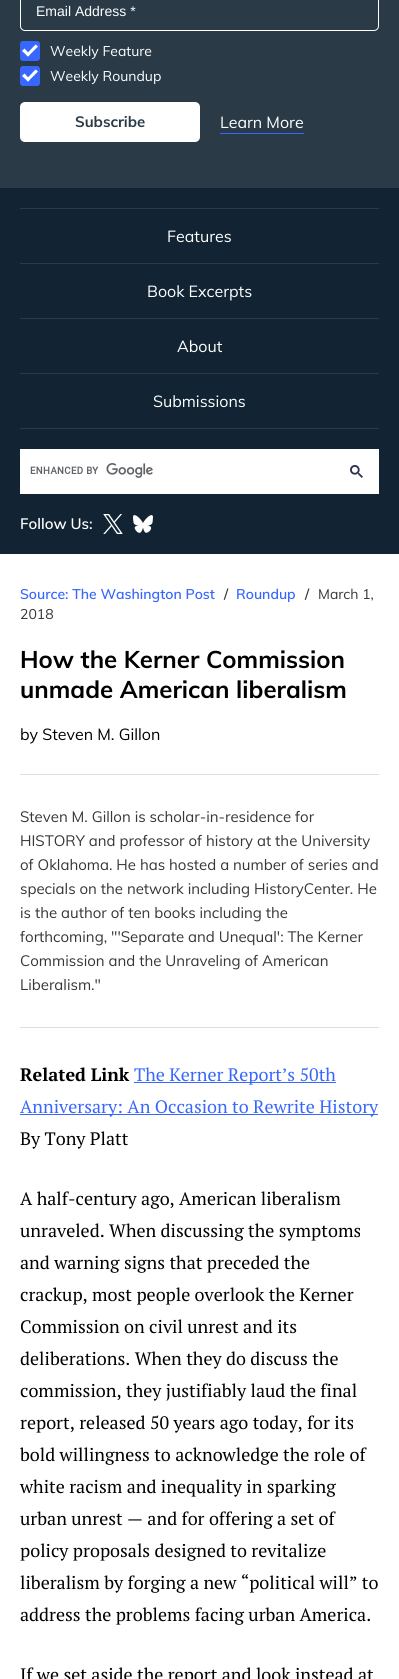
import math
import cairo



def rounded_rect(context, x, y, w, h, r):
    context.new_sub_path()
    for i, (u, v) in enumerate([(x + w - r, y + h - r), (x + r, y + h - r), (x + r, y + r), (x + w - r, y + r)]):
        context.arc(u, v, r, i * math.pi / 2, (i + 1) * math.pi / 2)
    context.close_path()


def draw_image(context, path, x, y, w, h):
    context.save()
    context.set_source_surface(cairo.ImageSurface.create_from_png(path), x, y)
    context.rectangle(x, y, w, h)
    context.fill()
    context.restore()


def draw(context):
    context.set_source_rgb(1, 1, 1)
    context.paint()
    context.set_source_rgb(42 / 255, 58 / 255, 71 / 255)
    context.rectangle(0, 0, 399, 188)
    context.fill()
    rounded_rect(context, 20.5, -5.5, 358, 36, 4.5)
    context.set_source_rgb(1, 1, 1)
    context.set_line_width(1)
    context.stroke()
    context.set_source_rgb(56 / 255, 103 / 255, 1)
    rounded_rect(context, 20.5, 41.5, 19, 19, 2.5)
    context.fill_preserve()
    context.stroke()
    context.set_source_rgb(1, 1, 1)
    context.new_path()
    context.move_to(35.5, 44.5)
    context.line_to(38, 46.5)
    context.line_to(28, 56.5)
    context.line_to(26, 54.5)
    context.close_path()
    context.fill()
    context.new_path()
    context.move_to(24.5, 48.5)
    context.line_to(30, 54.5)
    context.line_to(28, 56.5)
    context.line_to(22, 51)
    context.close_path()
    context.fill()
    context.set_source_rgb(56 / 255, 103 / 255, 1)
    rounded_rect(context, 20.5, 66.5, 19, 19, 2.5)
    context.fill_preserve()
    context.stroke()
    context.set_source_rgb(1, 1, 1)
    context.new_path()
    context.move_to(35.5, 69.5)
    context.line_to(38, 71.5)
    context.line_to(28, 81.5)
    context.line_to(26, 79.5)
    context.close_path()
    context.fill()
    context.new_path()
    context.move_to(24.5, 73.5)
    context.line_to(30, 79.5)
    context.line_to(28, 81.5)
    context.line_to(22, 76)
    context.close_path()
    context.fill()
    rounded_rect(context, 20, 102, 180, 40, 5)
    context.fill()
    context.set_source_rgb(56 / 255, 103 / 255, 1)
    context.rectangle(220, 133, 84, 1)
    context.fill()
    context.set_source_rgb(18 / 255, 36 / 255, 51 / 255)
    context.rectangle(0, 188, 399, 366)
    context.fill()
    context.set_source_rgb(42 / 255, 58 / 255, 71 / 255)
    context.rectangle(20, 208, 359, 1)
    context.fill()
    context.rectangle(20, 263, 359, 1)
    context.fill()
    context.rectangle(20, 318, 359, 1)
    context.fill()
    context.rectangle(20, 373, 359, 1)
    context.fill()
    context.rectangle(20, 428, 359, 1)
    context.fill()
    context.set_source_rgb(1, 1, 1)
    context.rectangle(20, 449, 359, 45)
    context.fill()
    draw_image(context, "images/1.png", 30, 463, 123, 15)
    draw_image(context, "images/2.png", 350, 465, 13, 13)
    draw_image(context, "images/3.png", 103, 514, 20, 20)
    draw_image(context, "images/4.png", 133, 515, 20, 18)
    context.set_source_rgb(222 / 255, 222 / 255, 222 / 255)
    context.rectangle(20, 1027, 359, 1)
    context.fill()
    context.rectangle(20, 774, 359, 1)
    context.fill()
    context.set_source_rgb(56 / 255, 103 / 255, 1)
    context.rectangle(134, 1082, 202, 1)
    context.fill()
    context.rectangle(20, 1114, 358, 1)
    context.fill()
    context.select_font_face("Liberation Sans")
    context.set_font_size(14)
    context.set_source_rgb(1, 1, 1)
    context.move_to(36, 16)
    context.show_text("Email Address *")
    context.select_font_face("Muli")
    context.move_to(50, 56)
    context.show_text("Weekly Feature")
    context.move_to(50, 81)
    context.show_text("Weekly Roundup")
    context.select_font_face("Muli", cairo.FontSlant.NORMAL, cairo.FontWeight.BOLD)
    context.set_font_size(15)
    context.set_source_rgb(42 / 255, 58 / 255, 71 / 255)
    context.move_to(75, 127)
    context.show_text("Subscribe")
    context.select_font_face("Muli")
    context.set_font_size(16)
    context.set_source_rgb(1, 1, 1)
    context.move_to(220, 128)
    context.show_text("Learn More")
    context.move_to(167, 242)
    context.show_text("Features")
    context.move_to(147, 297)
    context.show_text("Book Excerpts")
    context.move_to(177, 352)
    context.show_text("About")
    context.move_to(153, 407)
    context.show_text("Submissions")
    context.select_font_face("Muli SemiBold")
    context.set_font_size(15)
    context.move_to(20, 529)
    context.show_text("Follow Us:")
    context.set_font_size(14)
    context.set_source_rgb(56 / 255, 103 / 255, 1)
    context.move_to(20, 599)
    context.show_text("Source: The Washington Post")
    context.set_source_rgb(54 / 255, 54 / 255, 54 / 255)
    context.move_to(224, 599)
    context.show_text("/")
    context.set_source_rgb(56 / 255, 103 / 255, 1)
    context.move_to(236, 599)
    context.show_text("Roundup")
    context.set_source_rgb(54 / 255, 54 / 255, 54 / 255)
    context.move_to(305, 599)
    context.show_text("/")
    context.select_font_face("Muli")
    context.move_to(318, 599)
    context.show_text("March 1,")
    context.move_to(20, 619)
    context.show_text("2018")
    context.select_font_face("Muli", cairo.FontSlant.NORMAL, cairo.FontWeight.BOLD)
    context.set_font_size(24)
    context.set_source_rgb(0, 0, 0)
    context.move_to(20, 668)
    context.show_text("How the Kerner Commission")
    context.move_to(20, 698)
    context.show_text("unmade American liberalism")
    context.select_font_face("Muli")
    context.set_font_size(16)
    context.move_to(20, 740)
    context.show_text("by Steven M. Gillon")
    context.set_font_size(15)
    context.set_source_rgb(54 / 255, 54 / 255, 54 / 255)
    context.move_to(20, 822)
    context.show_text("Steven M. Gillon is scholar-in-residence for")
    context.move_to(20, 846)
    context.show_text("HISTORY and professor of history at the University")
    context.move_to(20, 870)
    context.show_text("of Oklahoma. He has hosted a number of series and")
    context.move_to(20, 894)
    context.show_text("specials on the network including HistoryCenter. He")
    context.move_to(20, 918)
    context.show_text("is the author of ten books including the")
    context.move_to(20, 942)
    context.show_text("forthcoming, \"'Separate and Unequal': The Kerner")
    context.move_to(20, 966)
    context.show_text("Commission and the Unraveling of American")
    context.move_to(20, 990)
    context.show_text("Liberalism.\"")
    context.select_font_face("PT Serif", cairo.FontSlant.NORMAL, cairo.FontWeight.BOLD)
    context.set_font_size(18)
    context.set_source_rgb(0, 0, 0)
    context.move_to(20, 1081)
    context.show_text("Related Link")
    context.select_font_face("PT Serif")
    context.set_source_rgb(56 / 255, 103 / 255, 1)
    context.move_to(134, 1081)
    context.show_text("The Kerner Report’s 50th")
    context.move_to(20, 1113)
    context.show_text("Anniversary: An Occasion to Rewrite History")
    context.set_source_rgb(0, 0, 0)
    context.move_to(20, 1145)
    context.show_text("By Tony Platt")
    context.move_to(20, 1205)
    context.show_text("A half-century ago, American liberalism")
    context.move_to(20, 1237)
    context.show_text("unraveled. When discussing the symptoms")
    context.move_to(20, 1269)
    context.show_text("and warning signs that preceded the")
    context.move_to(20, 1301)
    context.show_text("crackup, most people overlook the Kerner")
    context.move_to(20, 1333)
    context.show_text("Commission on civil unrest and its")
    context.move_to(20, 1365)
    context.show_text("deliberations. When they do discuss the")
    context.move_to(20, 1397)
    context.show_text("commission, they justifiably laud the final")
    context.move_to(20, 1429)
    context.show_text("report, released 50 years ago today, for its")
    context.move_to(20, 1461)
    context.show_text("bold willingness to acknowledge the role of")
    context.move_to(20, 1493)
    context.show_text("white racism and inequality in sparking")
    context.move_to(20, 1525)
    context.show_text("urban unrest — and for offering a set of")
    context.move_to(20, 1557)
    context.show_text("policy proposals designed to revitalize")
    context.move_to(20, 1589)
    context.show_text("liberalism by forging a new “political will” to")
    context.move_to(20, 1621)
    context.show_text("address the problems facing urban America.")
    context.move_to(20, 1681)
    context.show_text("If we set aside the report and look instead at")


surface = cairo.ImageSurface(cairo.Format.RGB24, 399, 1679)
context = cairo.Context(surface)
options = cairo.FontOptions()
options.set_hint_metrics(cairo.HintMetrics.OFF)
options.set_hint_style(cairo.HintStyle.NONE)
context.set_font_options(options)
context.set_miter_limit(4)
draw(context)
surface.write_to_png("out.png")
